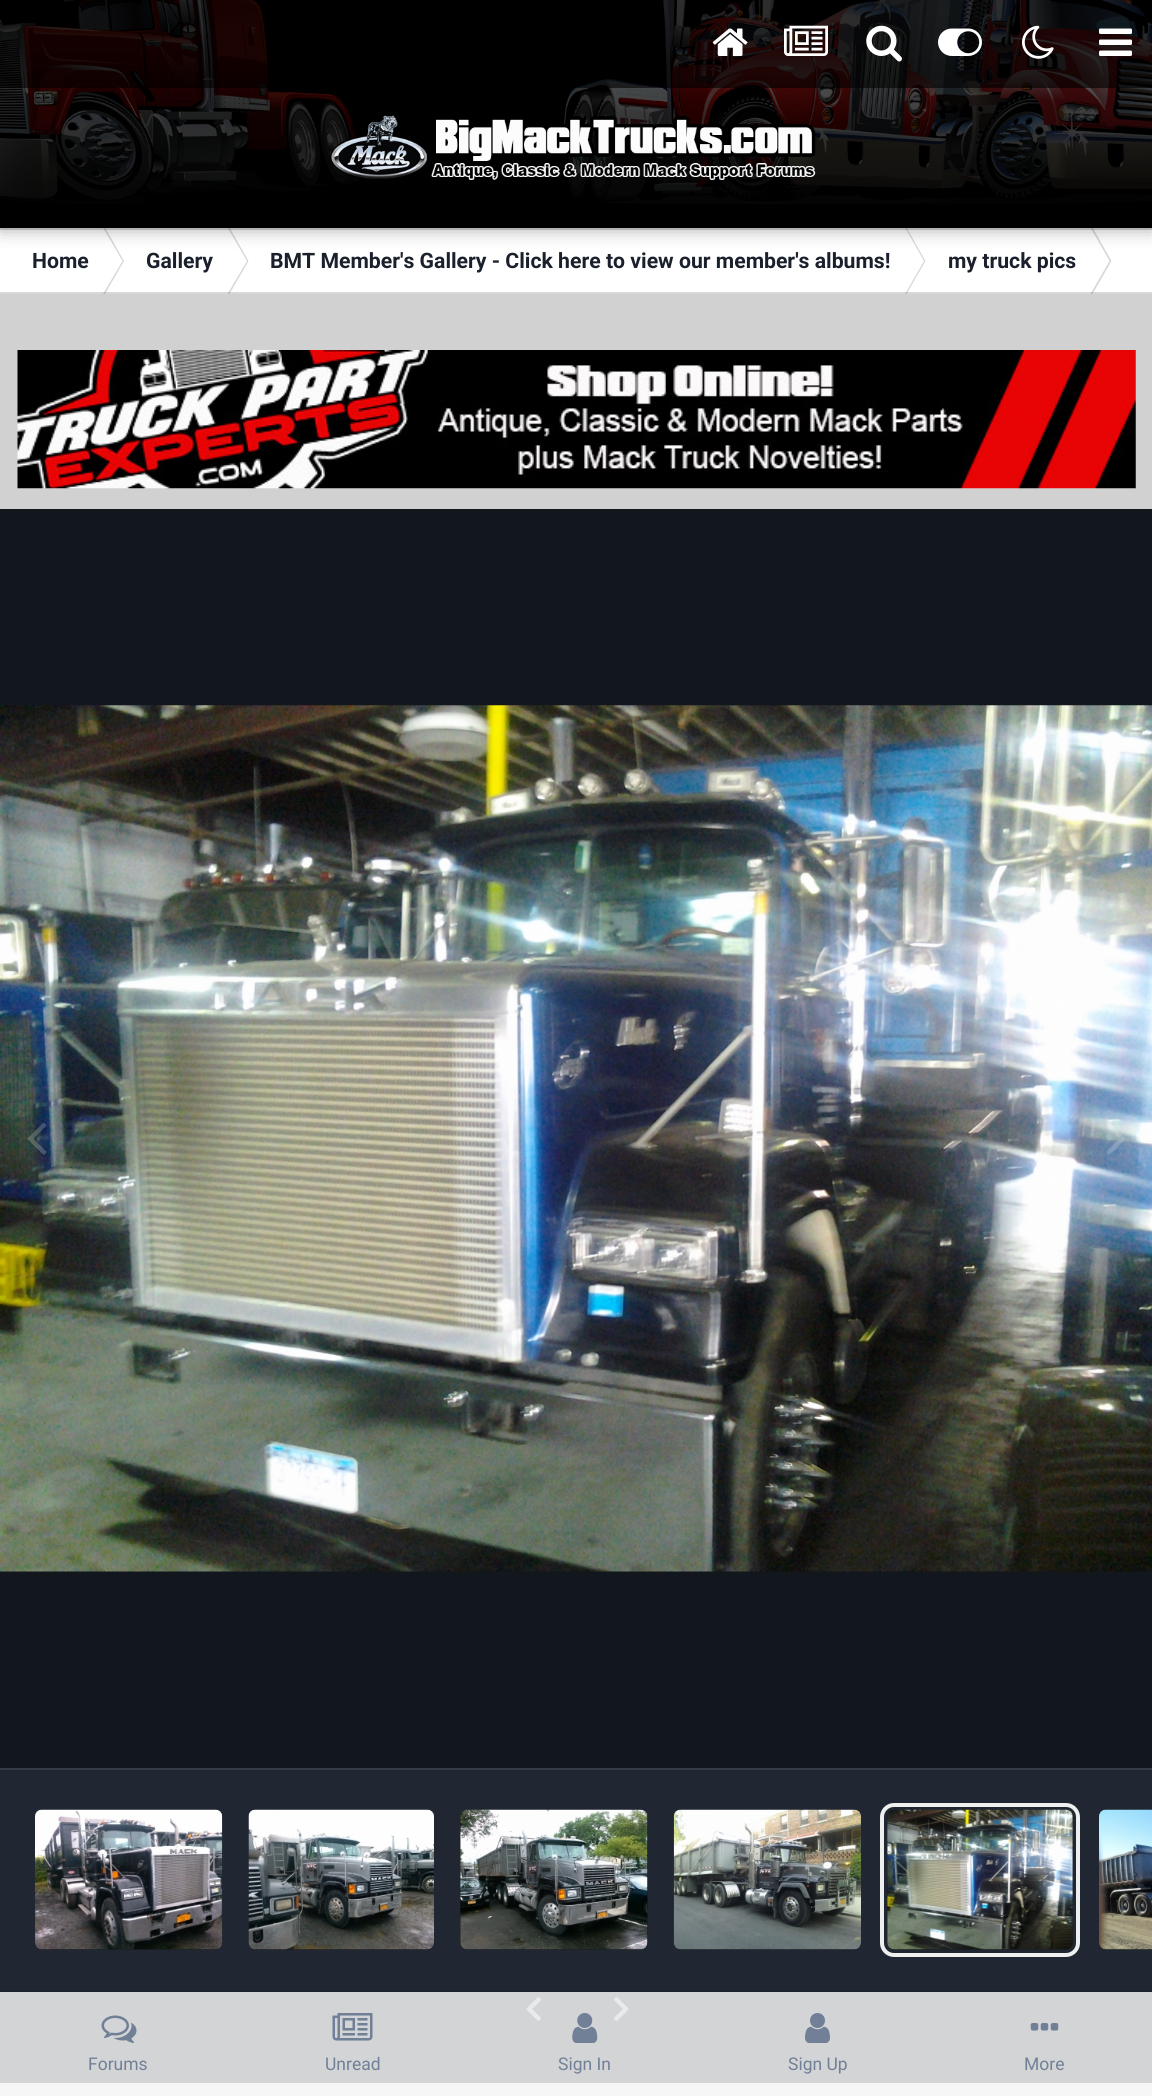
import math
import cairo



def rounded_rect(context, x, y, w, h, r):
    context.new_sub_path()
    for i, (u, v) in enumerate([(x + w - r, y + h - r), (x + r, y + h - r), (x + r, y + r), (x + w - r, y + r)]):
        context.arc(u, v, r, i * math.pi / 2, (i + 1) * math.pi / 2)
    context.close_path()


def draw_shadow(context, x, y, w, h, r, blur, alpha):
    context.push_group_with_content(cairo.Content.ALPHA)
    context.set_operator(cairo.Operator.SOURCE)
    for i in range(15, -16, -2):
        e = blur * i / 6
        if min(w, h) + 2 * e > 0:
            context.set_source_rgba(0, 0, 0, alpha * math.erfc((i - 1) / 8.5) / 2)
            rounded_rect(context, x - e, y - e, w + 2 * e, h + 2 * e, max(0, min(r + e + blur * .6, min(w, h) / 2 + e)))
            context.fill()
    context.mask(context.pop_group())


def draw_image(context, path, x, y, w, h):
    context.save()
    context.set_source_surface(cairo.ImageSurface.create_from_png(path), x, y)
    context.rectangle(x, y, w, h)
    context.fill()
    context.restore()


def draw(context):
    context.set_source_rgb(209 / 255, 209 / 255, 209 / 255)
    context.paint()
    context.set_source_rgb(246 / 255, 246 / 255, 246 / 255)
    context.rectangle(0, 2083, 1152, 13)
    context.fill()
    context.set_source_rgb(1, 1, 1)
    context.rectangle(0, 228, 1152, 66)
    context.fill()
    context.set_source_rgb(215 / 255, 216 / 255, 217 / 255)
    context.new_path()
    context.move_to(103, 227.5)
    context.line_to(105, 227.5)
    context.line_to(124, 261)
    context.line_to(122.5, 261)
    context.close_path()
    context.fill()
    context.new_path()
    context.move_to(227.5, 227.5)
    context.line_to(229.5, 227.5)
    context.line_to(248.5, 261)
    context.line_to(247, 261)
    context.close_path()
    context.fill()
    context.new_path()
    context.move_to(905, 227.5)
    context.line_to(906.5, 227.5)
    context.line_to(925.5, 261)
    context.line_to(924, 261)
    context.close_path()
    context.fill()
    context.new_path()
    context.move_to(1090.5, 227.5)
    context.line_to(1092.5, 227.5)
    context.line_to(1111.5, 261)
    context.line_to(1109.5, 261)
    context.close_path()
    context.fill()
    context.set_source_rgba(53 / 255, 60 / 255, 65 / 255, 0.2)
    context.rectangle(0, 228, 1152, 2)
    context.fill()
    context.set_source_rgb(0, 0, 0)
    draw_shadow(context, 0, 2, 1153, 227, 0, 9, 0.35)
    context.set_source_rgb(0, 0, 0)
    context.rectangle(0, 204, 1152, 24)
    context.fill()
    draw_image(context, "images/1.png", 0, 0, 1152, 204)
    context.set_source_rgba(0, 0, 0, 0.6)
    context.rectangle(0, 0, 1152, 88)
    context.fill()
    draw_image(context, "images/2.png", 712, 28, 36, 28)
    draw_image(context, "images/3.png", 784, 25, 44, 31)
    draw_image(context, "images/4.png", 866, 25, 36, 37)
    draw_image(context, "images/5.png", 938, 28, 44, 28)
    draw_image(context, "images/6.png", 1022, 25, 32, 34)
    draw_image(context, "images/7.png", 1099, 28, 33, 28)
    draw_image(context, "images/8.png", 330, 115, 486, 65)
    context.set_source_rgb(215 / 255, 216 / 255, 217 / 255)
    context.new_path()
    context.move_to(103, 294)
    context.line_to(105, 294)
    context.line_to(124, 261)
    context.line_to(122.5, 261)
    context.close_path()
    context.fill()
    context.new_path()
    context.move_to(227.5, 294)
    context.line_to(229.5, 294)
    context.line_to(248.5, 261)
    context.line_to(247, 261)
    context.close_path()
    context.fill()
    context.new_path()
    context.move_to(905, 294)
    context.line_to(906.5, 294)
    context.line_to(925.5, 261)
    context.line_to(924, 261)
    context.close_path()
    context.fill()
    context.new_path()
    context.move_to(1090.5, 294)
    context.line_to(1092.5, 294)
    context.line_to(1111.5, 261)
    context.line_to(1109.5, 261)
    context.close_path()
    context.fill()
    context.set_source_rgba(53 / 255, 60 / 255, 65 / 255, 0.2)
    context.rectangle(0, 292, 1152, 2)
    context.fill()
    draw_image(context, "images/9.png", 17, 350, 1119, 139)
    context.set_source_rgb(18 / 255, 22 / 255, 29 / 255)
    context.rectangle(0, 509, 1152, 1259)
    context.fill()
    draw_image(context, "images/10.png", 0, 705, 1152, 867)
    draw_image(context, "images/11.png", 27, 1122, 20, 33)
    draw_image(context, "images/12.png", 1106, 1123, 19, 32)
    context.set_source_rgb(32 / 255, 39 / 255, 50 / 255)
    context.rectangle(0, 1770, 1152, 220)
    context.fill()
    context.set_source_rgb(210 / 255, 212 / 255, 214 / 255)
    context.rectangle(0, 1992, 1152, 91)
    context.fill()
    context.set_source_rgb(54 / 255, 61 / 255, 71 / 255)
    context.rectangle(0, 1768, 1152, 2)
    context.fill()
    context.set_source_rgb(20 / 255, 20 / 255, 20 / 255)
    rounded_rect(context, 35, 1810, 187, 140, 7)
    context.fill()
    context.set_source_rgba(45 / 255, 55 / 255, 72 / 255, 0.3)
    rounded_rect(context, 35, 1810, 187, 140, 7)
    context.fill()
    draw_image(context, "images/13.png", 35, 1809, 188, 141)
    context.set_source_rgb(20 / 255, 20 / 255, 20 / 255)
    rounded_rect(context, 249, 1810, 185, 140, 7)
    context.fill()
    context.set_source_rgba(45 / 255, 55 / 255, 72 / 255, 0.3)
    rounded_rect(context, 249, 1810, 185, 140, 7)
    context.fill()
    draw_image(context, "images/14.png", 248, 1809, 186, 141)
    context.set_source_rgb(20 / 255, 20 / 255, 20 / 255)
    rounded_rect(context, 460, 1810, 188, 140, 7)
    context.fill()
    context.set_source_rgba(45 / 255, 55 / 255, 72 / 255, 0.3)
    rounded_rect(context, 460, 1810, 188, 140, 7)
    context.fill()
    draw_image(context, "images/15.png", 460, 1809, 188, 141)
    context.set_source_rgb(20 / 255, 20 / 255, 20 / 255)
    rounded_rect(context, 674, 1810, 187, 140, 7)
    context.fill()
    context.set_source_rgba(45 / 255, 55 / 255, 72 / 255, 0.3)
    rounded_rect(context, 674, 1810, 187, 140, 7)
    context.fill()
    draw_image(context, "images/16.png", 673, 1809, 188, 141)
    context.set_source_rgb(20 / 255, 20 / 255, 20 / 255)
    rounded_rect(context, 887, 1810, 186, 140, 7)
    context.fill()
    context.set_source_rgba(45 / 255, 55 / 255, 72 / 255, 0.3)
    rounded_rect(context, 887, 1810, 186, 140, 7)
    context.fill()
    rounded_rect(context, 882, 1805, 196, 150, 12)
    context.set_source_rgb(238 / 255, 239 / 255, 239 / 255)
    context.set_line_width(4)
    context.stroke()
    draw_image(context, "images/17.png", 887, 1809, 186, 141)
    context.set_source_rgb(20 / 255, 20 / 255, 20 / 255)
    context.new_path()
    context.move_to(1106, 1810)
    context.line_to(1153, 1810)
    context.line_to(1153, 1950)
    context.line_to(1106, 1950)
    context.curve_to(1102, 1950, 1099, 1947, 1099, 1943)
    context.line_to(1099, 1817)
    context.curve_to(1099, 1813, 1102, 1810, 1106, 1810)
    context.close_path()
    context.fill()
    context.set_source_rgba(45 / 255, 55 / 255, 72 / 255, 0.3)
    context.new_path()
    context.move_to(1106, 1810)
    context.line_to(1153, 1810)
    context.line_to(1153, 1950)
    context.line_to(1106, 1950)
    context.curve_to(1102, 1950, 1099, 1947, 1099, 1943)
    context.line_to(1099, 1817)
    context.curve_to(1099, 1813, 1102, 1810, 1106, 1810)
    context.close_path()
    context.fill()
    draw_image(context, "images/18.png", 1099, 1809, 53, 141)
    draw_image(context, "images/19.png", 526, 1997, 15, 24)
    draw_image(context, "images/20.png", 614, 1997, 15, 24)
    context.set_source_rgb(29 / 255, 35 / 255, 45 / 255)
    context.rectangle(0, 1990, 1152, 2)
    context.fill()
    draw_image(context, "images/21.png", 101, 2015, 36, 28)
    draw_image(context, "images/22.png", 332, 2013, 41, 28)
    draw_image(context, "images/23.png", 572, 2013, 26, 30)
    draw_image(context, "images/24.png", 805, 2013, 25, 30)
    draw_image(context, "images/25.png", 1030, 2023, 29, 8)
    context.select_font_face("Roboto", cairo.FontSlant.NORMAL, cairo.FontWeight.BOLD)
    context.set_font_size(21.2)
    context.set_source_rgb(26 / 255, 32 / 255, 44 / 255)
    context.move_to(32, 268)
    context.show_text("Home")
    context.move_to(146, 268)
    context.show_text("Gallery")
    context.move_to(270, 268)
    context.show_text("BMT Member's Gallery - Click here to view our member's albums!")
    context.move_to(948, 268)
    context.show_text("my truck pics")
    context.select_font_face("Roboto")
    context.set_font_size(17.5)
    context.set_source_rgb(113 / 255, 128 / 255, 150 / 255)
    context.move_to(88, 2070)
    context.show_text("Forums")
    context.move_to(325, 2070)
    context.show_text("Unread")
    context.move_to(558, 2070)
    context.show_text("Sign In")
    context.move_to(788, 2070)
    context.show_text("Sign Up")
    context.move_to(1024, 2070)
    context.show_text("More")


surface = cairo.ImageSurface(cairo.Format.RGB24, 1152, 2096)
context = cairo.Context(surface)
options = cairo.FontOptions()
options.set_hint_metrics(cairo.HintMetrics.OFF)
options.set_hint_style(cairo.HintStyle.NONE)
context.set_font_options(options)
context.set_miter_limit(4)
draw(context)
surface.write_to_png("out.png")
